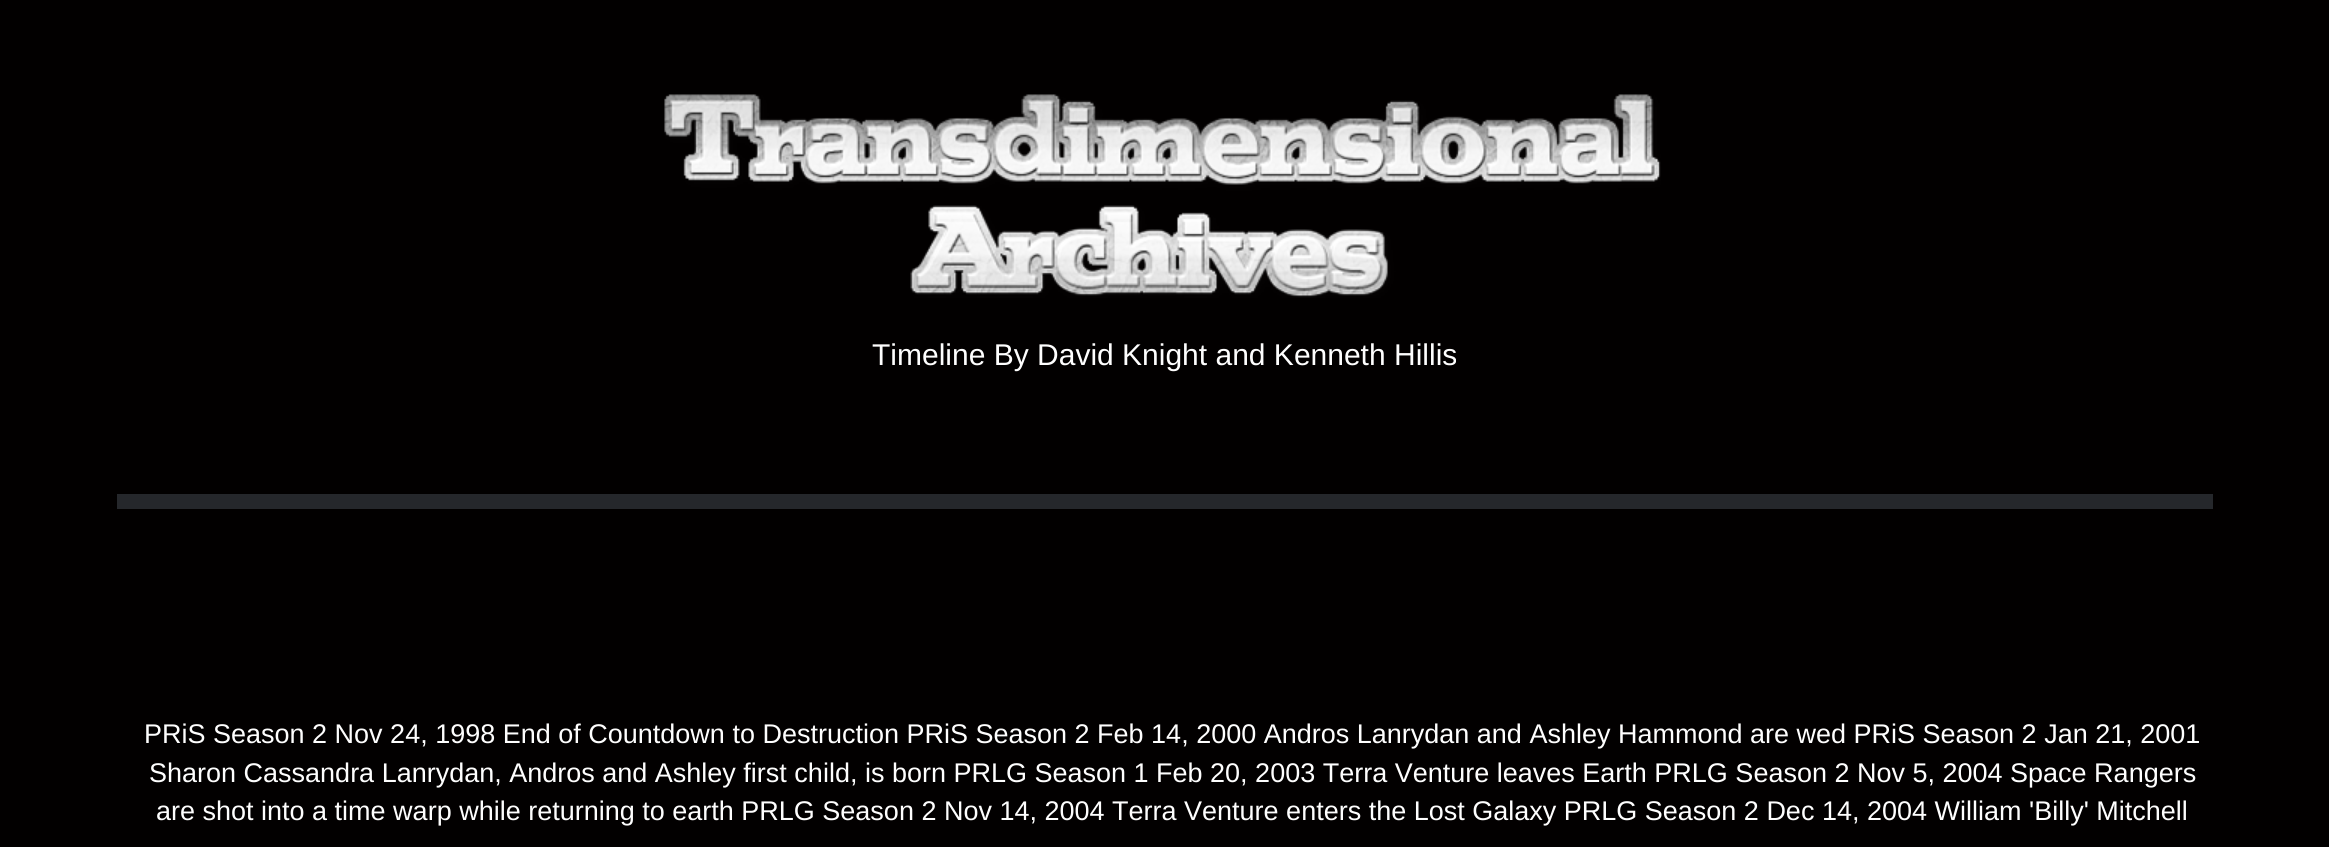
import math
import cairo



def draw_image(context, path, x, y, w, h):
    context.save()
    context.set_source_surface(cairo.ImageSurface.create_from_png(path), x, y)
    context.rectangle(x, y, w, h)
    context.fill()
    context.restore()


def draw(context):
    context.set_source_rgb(2 / 255, 0, 0)
    context.paint()
    draw_image(context, "images/1.png", 664, 94, 997, 204)
    context.set_source_rgb(37 / 255, 39 / 255, 43 / 255)
    context.rectangle(117, 494, 2096, 15)
    context.fill()
    context.select_font_face("Liberation Sans")
    context.set_font_size(30)
    context.set_source_rgb(254 / 255, 254 / 255, 254 / 255)
    context.move_to(872, 365)
    context.show_text("Timeline By David Knight and Kenneth Hillis")
    context.set_font_size(27)
    context.move_to(144, 743)
    context.show_text("PRiS Season 2 Nov 24, 1998 End of Countdown to Destruction PRiS Season 2 Feb 14, 2000 Andros Lanrydan and Ashley Hammond are wed PRiS Season 2 Jan 21, 2001")
    context.move_to(149, 782)
    context.show_text("Sharon Cassandra Lanrydan, Andros and Ashley first child, is born PRLG Season 1 Feb 20, 2003 Terra Venture leaves Earth PRLG Season 2 Nov 5, 2004 Space Rangers")
    context.move_to(156, 820)
    context.show_text("are shot into a time warp while returning to earth PRLG Season 2 Nov 14, 2004 Terra Venture enters the Lost Galaxy PRLG Season 2 Dec 14, 2004 William 'Billy' Mitchell")


surface = cairo.ImageSurface(cairo.Format.RGB24, 2329, 847)
context = cairo.Context(surface)
options = cairo.FontOptions()
options.set_hint_metrics(cairo.HintMetrics.OFF)
options.set_hint_style(cairo.HintStyle.NONE)
context.set_font_options(options)
context.set_miter_limit(4)
draw(context)
surface.write_to_png("out.png")
